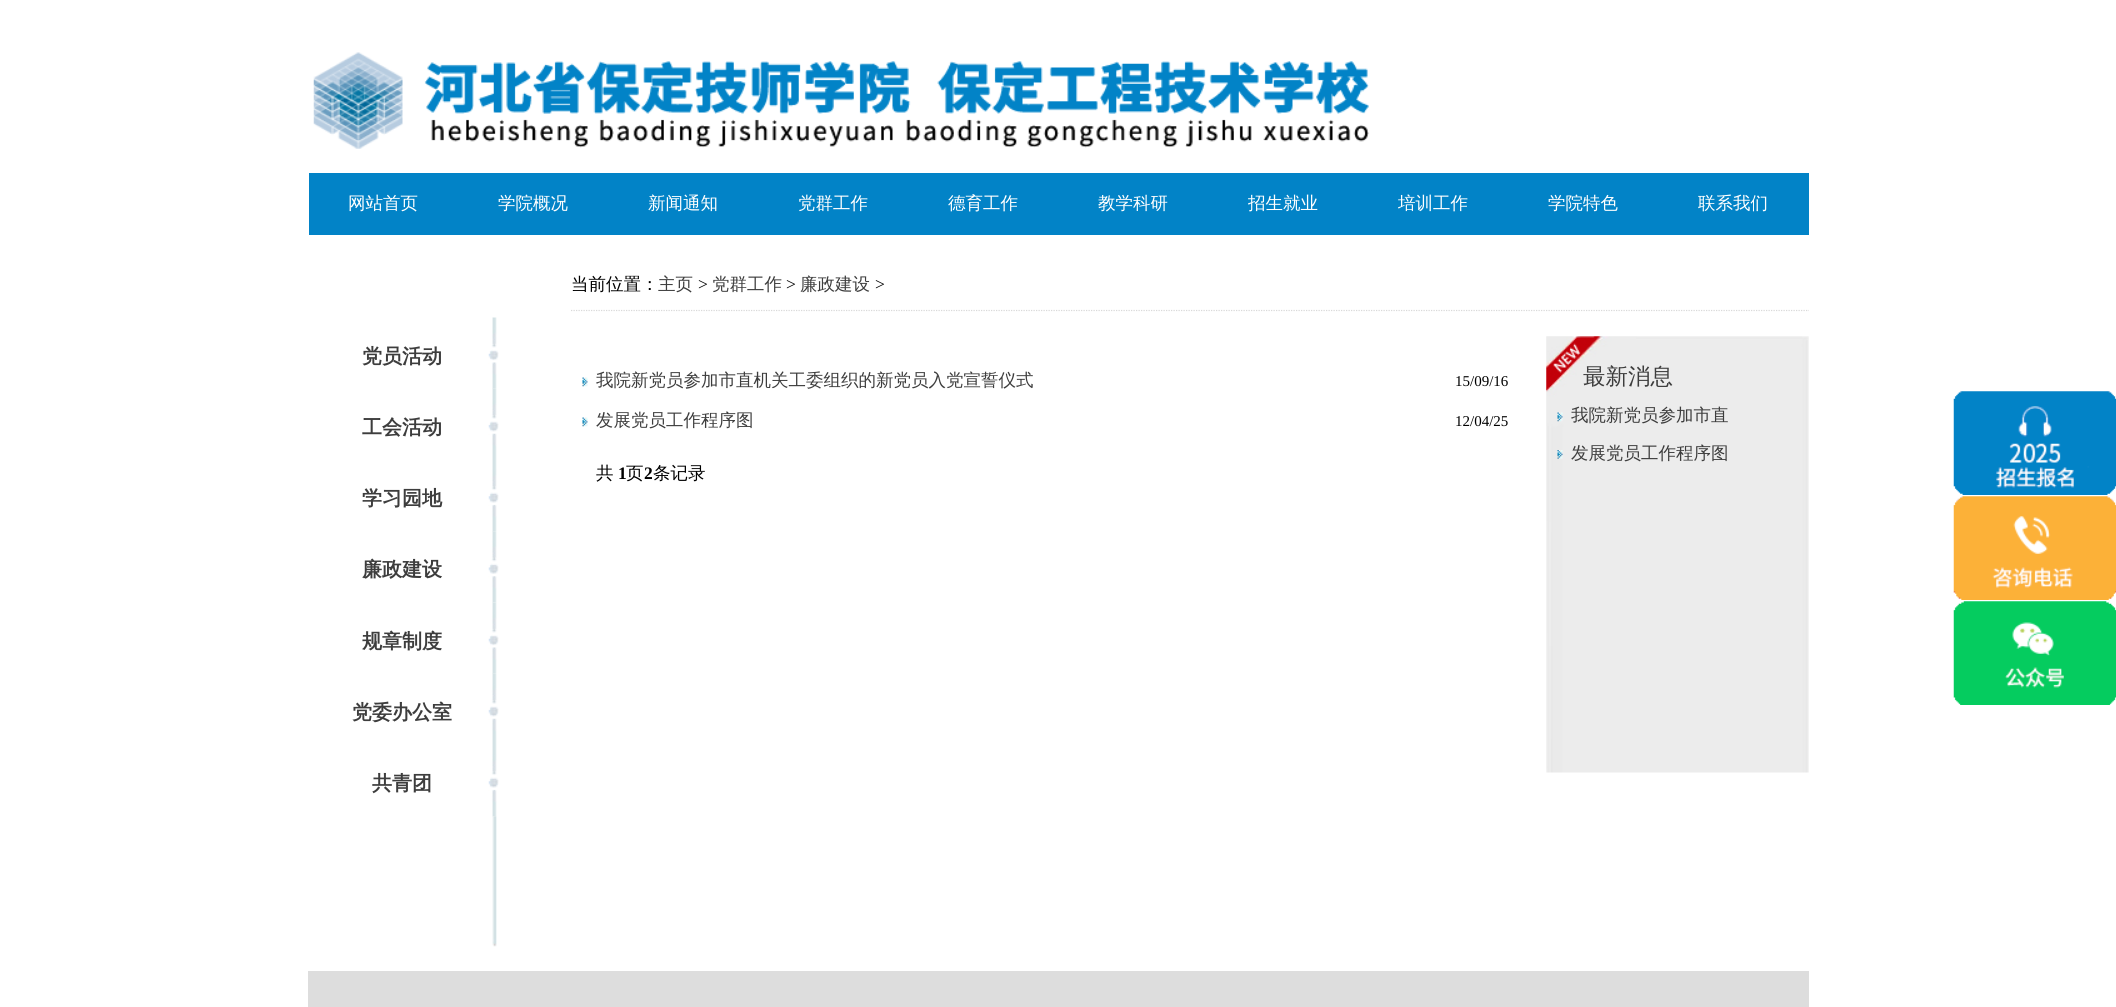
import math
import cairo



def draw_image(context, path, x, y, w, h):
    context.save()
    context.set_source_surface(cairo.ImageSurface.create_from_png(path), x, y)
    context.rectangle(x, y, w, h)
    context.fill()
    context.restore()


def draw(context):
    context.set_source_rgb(1, 1, 1)
    context.paint()
    draw_image(context, "images/1.png", 313, 52, 1056, 97)
    context.set_source_rgb(2 / 255, 131 / 255, 199 / 255)
    context.rectangle(309, 173, 1500, 62)
    context.fill()
    draw_image(context, "images/2.png", 488, 317, 11, 72)
    draw_image(context, "images/3.png", 488, 388, 11, 72)
    draw_image(context, "images/4.png", 488, 460, 11, 72)
    draw_image(context, "images/5.png", 488, 531, 11, 72)
    draw_image(context, "images/6.png", 488, 602, 11, 72)
    draw_image(context, "images/3.png", 488, 673, 11, 72)
    draw_image(context, "images/4.png", 488, 745, 11, 72)
    draw_image(context, "images/7.png", 492, 816, 5, 131)
    context.new_path()
    context.move_to(571, 310.5)
    context.line_to(1809, 310.5)
    context.set_source_rgb(217 / 255, 217 / 255, 217 / 255)
    context.set_line_width(1.2)
    context.set_dash([1.25, 1.25])
    context.stroke()
    draw_image(context, "images/8.png", 582, 377, 6, 10)
    draw_image(context, "images/8.png", 582, 417, 6, 10)
    draw_image(context, "images/9.png", 1546, 336, 263, 437)
    draw_image(context, "images/10.png", 1557, 412, 6, 10)
    draw_image(context, "images/11.png", 1557, 450, 6, 9)
    draw_image(context, "images/12.png", 1953, 391, 163, 104)
    draw_image(context, "images/13.png", 1953, 496, 163, 104)
    draw_image(context, "images/14.png", 1953, 601, 163, 104)
    context.set_source_rgb(221 / 255, 221 / 255, 221 / 255)
    context.rectangle(308, 971, 1501, 36)
    context.fill()
    context.select_font_face("WenQuanYi Zen Hei Medium")
    context.set_font_size(17.5)
    context.set_source_rgb(1, 1, 1)
    context.move_to(348, 209)
    context.show_text("网站首页")
    context.move_to(498, 209)
    context.show_text("学院概况")
    context.move_to(648, 209)
    context.show_text("新闻通知")
    context.move_to(798, 209)
    context.show_text("党群工作")
    context.move_to(948, 209)
    context.show_text("德育工作")
    context.move_to(1098, 209)
    context.show_text("教学科研")
    context.move_to(1248, 209)
    context.show_text("招生就业")
    context.move_to(1398, 209)
    context.show_text("培训工作")
    context.move_to(1548, 209)
    context.show_text("学院特色")
    context.move_to(1698, 209)
    context.show_text("联系我们")
    context.select_font_face("WenQuanYi Zen Hei", cairo.FontSlant.NORMAL, cairo.FontWeight.BOLD)
    context.set_font_size(20)
    context.set_source_rgb(61 / 255, 61 / 255, 61 / 255)
    context.move_to(362, 363)
    context.show_text("党员活动")
    context.move_to(362, 434)
    context.show_text("工会活动")
    context.move_to(362, 505)
    context.show_text("学习园地")
    context.move_to(362, 576)
    context.show_text("廉政建设")
    context.move_to(362, 648)
    context.show_text("规章制度")
    context.move_to(352, 719)
    context.show_text("党委办公室")
    context.move_to(372, 790)
    context.show_text("共青团")
    context.select_font_face("WenQuanYi Zen Hei Medium")
    context.set_font_size(17.5)
    context.set_source_rgb(0, 0, 0)
    context.move_to(571, 290)
    context.show_text("当前位置：")
    context.set_source_rgb(61 / 255, 61 / 255, 61 / 255)
    context.move_to(658, 290)
    context.show_text("主页")
    context.select_font_face("Liberation Serif")
    context.set_source_rgb(0, 0, 0)
    context.move_to(698, 290)
    context.show_text(">")
    context.select_font_face("WenQuanYi Zen Hei Medium")
    context.set_source_rgb(61 / 255, 61 / 255, 61 / 255)
    context.move_to(712, 290)
    context.show_text("党群工作")
    context.select_font_face("Liberation Serif")
    context.set_source_rgb(0, 0, 0)
    context.move_to(786, 290)
    context.show_text(">")
    context.select_font_face("WenQuanYi Zen Hei Medium")
    context.set_source_rgb(61 / 255, 61 / 255, 61 / 255)
    context.move_to(800, 290)
    context.show_text("廉政建设")
    context.select_font_face("Liberation Serif")
    context.set_source_rgb(0, 0, 0)
    context.move_to(875, 290)
    context.show_text(">")
    context.select_font_face("WenQuanYi Zen Hei Medium")
    context.set_source_rgb(61 / 255, 61 / 255, 61 / 255)
    context.move_to(596, 386)
    context.show_text("我院新党员参加市直机关工委组织的新党员入党宣誓仪式")
    context.select_font_face("Liberation Serif")
    context.set_font_size(15)
    context.set_source_rgb(0, 0, 0)
    context.move_to(1455, 386)
    context.show_text("15/09/16")
    context.select_font_face("WenQuanYi Zen Hei Medium")
    context.set_font_size(17.5)
    context.set_source_rgb(61 / 255, 61 / 255, 61 / 255)
    context.move_to(596, 426)
    context.show_text("发展党员工作程序图")
    context.select_font_face("Liberation Serif")
    context.set_font_size(15)
    context.set_source_rgb(0, 0, 0)
    context.move_to(1455, 426)
    context.show_text("12/04/25")
    context.select_font_face("WenQuanYi Zen Hei Medium")
    context.set_font_size(17.5)
    context.move_to(596, 479)
    context.show_text("共")
    context.select_font_face("Liberation Serif", cairo.FontSlant.NORMAL, cairo.FontWeight.BOLD)
    context.move_to(618, 479)
    context.show_text("1")
    context.select_font_face("WenQuanYi Zen Hei Medium")
    context.move_to(626, 479)
    context.show_text("页")
    context.select_font_face("Liberation Serif", cairo.FontSlant.NORMAL, cairo.FontWeight.BOLD)
    context.move_to(644, 479)
    context.show_text("2")
    context.select_font_face("WenQuanYi Zen Hei Medium")
    context.move_to(653, 479)
    context.show_text("条记录")
    context.set_font_size(22.5)
    context.set_source_rgb(61 / 255, 61 / 255, 61 / 255)
    context.move_to(1583, 384)
    context.show_text("最新消息")
    context.set_font_size(17.5)
    context.move_to(1571, 421)
    context.show_text("我院新党员参加市直")
    context.move_to(1571, 459)
    context.show_text("发展党员工作程序图")


surface = cairo.ImageSurface(cairo.Format.RGB24, 2116, 1007)
context = cairo.Context(surface)
options = cairo.FontOptions()
options.set_hint_metrics(cairo.HintMetrics.OFF)
options.set_hint_style(cairo.HintStyle.NONE)
context.set_font_options(options)
context.set_miter_limit(4)
draw(context)
surface.write_to_png("out.png")
